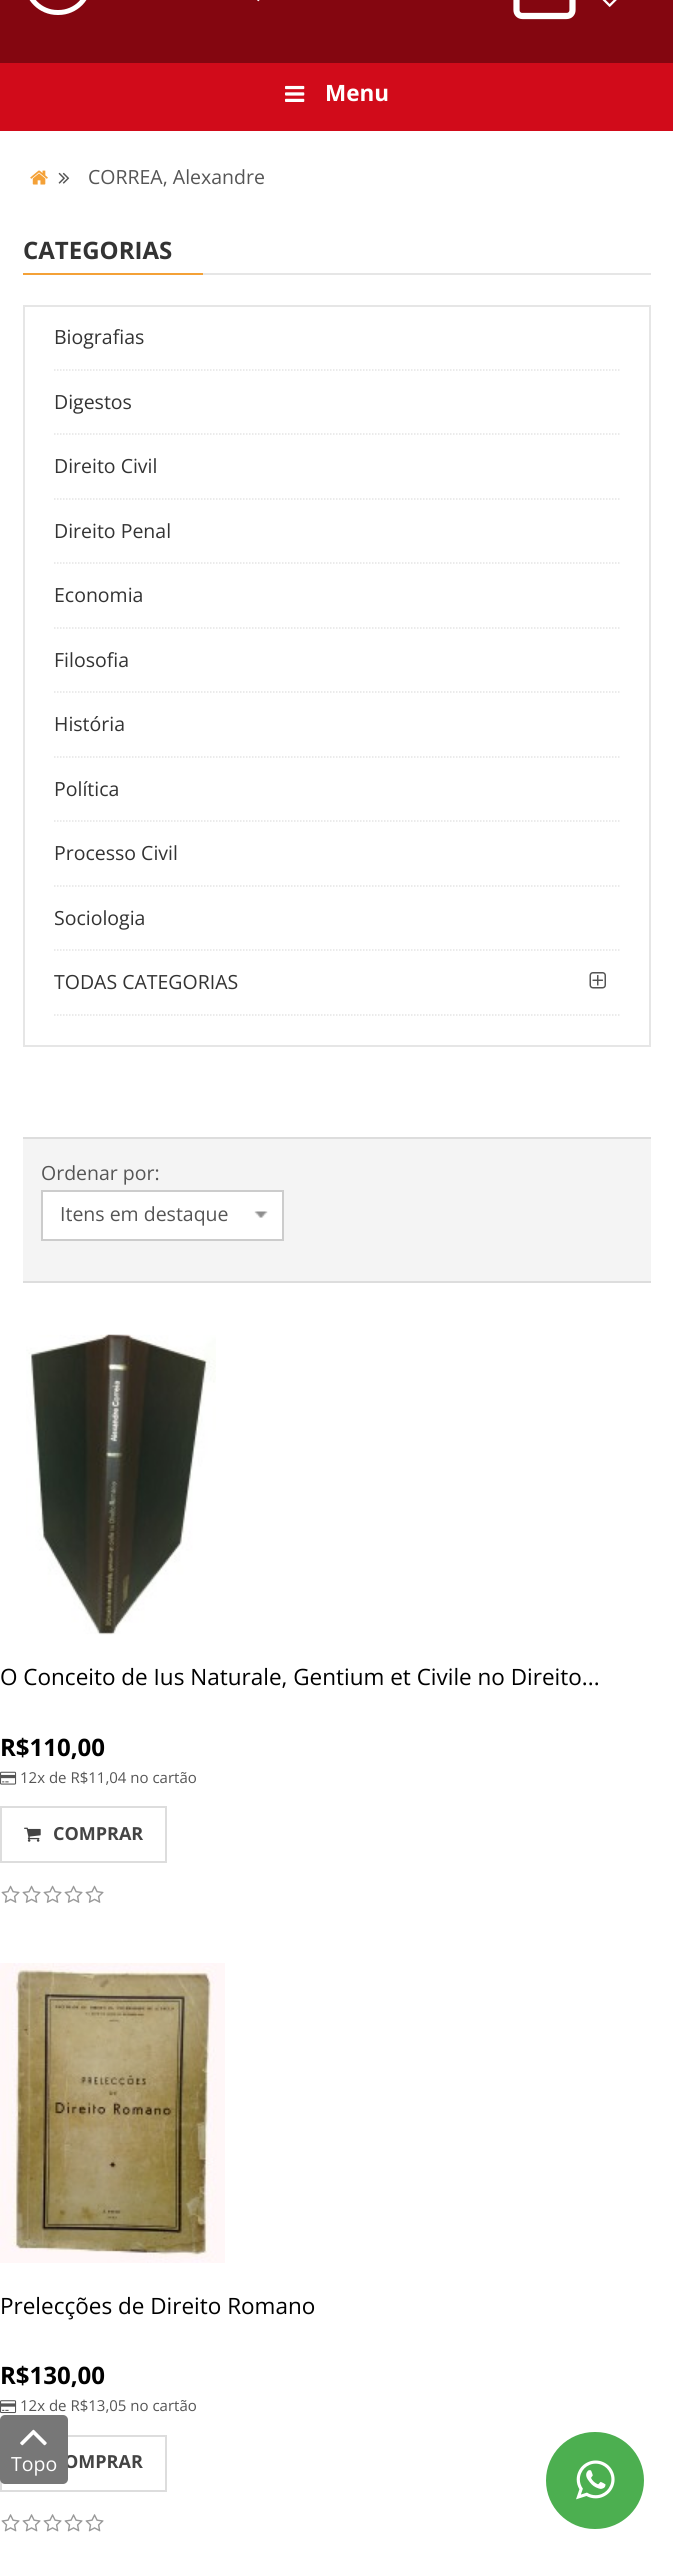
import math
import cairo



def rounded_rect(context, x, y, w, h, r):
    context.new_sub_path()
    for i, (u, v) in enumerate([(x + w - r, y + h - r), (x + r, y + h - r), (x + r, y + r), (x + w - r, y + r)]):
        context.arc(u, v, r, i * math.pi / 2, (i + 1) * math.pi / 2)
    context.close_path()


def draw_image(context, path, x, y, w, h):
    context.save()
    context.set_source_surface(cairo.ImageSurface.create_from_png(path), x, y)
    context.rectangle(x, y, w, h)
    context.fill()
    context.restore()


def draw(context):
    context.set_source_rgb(1, 1, 1)
    context.paint()
    context.set_source_rgb(132 / 255, 6 / 255, 16 / 255)
    context.rectangle(0, 0, 673, 63)
    context.fill()
    rounded_rect(context, 26.5, -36.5, 63, 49, 31)
    context.set_source_rgb(1, 1, 1)
    context.set_line_width(5)
    context.stroke()
    draw_image(context, "images/1.png", 257, 0, 3, 2)
    context.new_path()
    context.move_to(526, -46)
    context.line_to(516.5, -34)
    context.line_to(516.5, 10)
    context.curve_to(516.5, 13.5, 519, 16, 522.5, 16)
    context.line_to(566.5, 16)
    context.curve_to(570, 16, 572.5, 13.5, 572.5, 10)
    context.line_to(572.5, -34)
    context.line_to(563, -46)
    context.close_path()
    context.set_line_width(6.2)
    context.set_line_cap(cairo.LineCap.ROUND)
    context.set_line_join(cairo.LineJoin.ROUND)
    context.stroke()
    draw_image(context, "images/2.png", 602, 0, 15, 7)
    context.set_source_rgb(209 / 255, 11 / 255, 26 / 255)
    context.rectangle(0, 63, 673, 68)
    context.fill()
    draw_image(context, "images/3.png", 285, 85, 20, 17)
    draw_image(context, "images/4.png", 30, 170, 18, 15)
    draw_image(context, "images/5.png", 58, 172, 12, 12)
    context.set_source_rgb(230 / 255, 230 / 255, 230 / 255)
    context.rectangle(203, 273, 448, 2)
    context.fill()
    context.set_source_rgb(244 / 255, 161 / 255, 55 / 255)
    context.rectangle(23, 273, 180, 2)
    context.fill()
    context.rectangle(24, 306, 626, 740)
    context.set_source_rgb(230 / 255, 230 / 255, 230 / 255)
    context.set_line_width(2)
    context.set_line_cap(cairo.LineCap.BUTT)
    context.set_line_join(cairo.LineJoin.MITER)
    context.stroke()
    context.new_path()
    context.move_to(54, 370)
    context.line_to(619.5, 370)
    context.set_source_rgb(228 / 255, 228 / 255, 228 / 255)
    context.set_line_width(1.5)
    context.set_dash([1.5, 1.5])
    context.stroke()
    context.new_path()
    context.move_to(54, 434)
    context.line_to(619.5, 434)
    context.stroke()
    context.new_path()
    context.move_to(54, 499)
    context.line_to(619.5, 499)
    context.stroke()
    context.new_path()
    context.move_to(54, 563)
    context.line_to(619.5, 563)
    context.stroke()
    context.new_path()
    context.move_to(54, 628)
    context.line_to(619.5, 628)
    context.stroke()
    context.new_path()
    context.move_to(54, 692)
    context.line_to(619.5, 692)
    context.stroke()
    context.new_path()
    context.move_to(54, 757)
    context.line_to(619.5, 757)
    context.stroke()
    context.new_path()
    context.move_to(54, 821)
    context.line_to(619.5, 821)
    context.stroke()
    context.new_path()
    context.move_to(54, 886)
    context.line_to(619.5, 886)
    context.stroke()
    context.new_path()
    context.move_to(54, 950)
    context.line_to(619.5, 950)
    context.stroke()
    context.new_path()
    context.move_to(54, 1015)
    context.line_to(619.5, 1015)
    context.stroke()
    draw_image(context, "images/6.png", 589, 972, 17, 17)
    context.set_source_rgb(244 / 255, 244 / 255, 244 / 255)
    context.rectangle(23, 1139, 628, 142)
    context.fill()
    context.set_source_rgb(221 / 255, 221 / 255, 221 / 255)
    context.rectangle(23, 1137, 628, 2)
    context.fill()
    context.rectangle(23, 1281, 628, 2)
    context.fill()
    context.set_source_rgb(1, 1, 1)
    context.rectangle(43, 1192, 239, 47)
    context.fill()
    draw_image(context, "images/7.png", 254, 1211, 14, 7)
    context.rectangle(42, 1191, 241, 49)
    context.set_source_rgb(204 / 255, 204 / 255, 204 / 255)
    context.set_line_width(2)
    context.set_dash([])
    context.stroke()
    draw_image(context, "images/8.png", 26, 1334, 190, 301)
    draw_image(context, "images/9.png", 0, 1771, 17, 14)
    context.rectangle(1, 1807, 165, 55)
    context.set_source_rgb(221 / 255, 221 / 255, 221 / 255)
    context.stroke()
    draw_image(context, "images/10.png", 24, 1827, 17, 15)
    draw_image(context, "images/11.png", 1, 1885, 19, 18)
    draw_image(context, "images/11.png", 22, 1885, 19, 18)
    draw_image(context, "images/11.png", 43, 1885, 19, 18)
    draw_image(context, "images/11.png", 64, 1885, 19, 18)
    draw_image(context, "images/11.png", 85, 1885, 19, 18)
    draw_image(context, "images/12.png", 0, 1963, 225, 300)
    draw_image(context, "images/13.png", 0, 2400, 17, 14)
    context.rectangle(1, 2436, 165, 55)
    context.stroke()
    draw_image(context, "images/14.png", 1, 2514, 19, 18)
    draw_image(context, "images/14.png", 22, 2514, 19, 18)
    draw_image(context, "images/14.png", 43, 2514, 19, 18)
    draw_image(context, "images/14.png", 64, 2514, 19, 18)
    draw_image(context, "images/14.png", 85, 2514, 19, 18)
    context.set_source_rgb(76 / 255, 175 / 255, 80 / 255)
    rounded_rect(context, 546, 2432, 98, 97, 48.5)
    context.fill()
    draw_image(context, "images/16.png", 576, 2460, 39, 40)
    context.select_font_face("Open Sans", cairo.FontSlant.NORMAL, cairo.FontWeight.BOLD)
    context.set_font_size(22.5)
    context.set_source_rgb(1, 1, 1)
    context.move_to(325, 101)
    context.show_text("Menu")
    context.select_font_face("Open Sans")
    context.set_font_size(19.5)
    context.set_source_rgb(85 / 255, 85 / 255, 85 / 255)
    context.move_to(88, 184)
    context.show_text("CORREA, Alexandre")
    context.select_font_face("Open Sans", cairo.FontSlant.NORMAL, cairo.FontWeight.BOLD)
    context.set_font_size(24)
    context.set_source_rgb(51 / 255, 51 / 255, 51 / 255)
    context.move_to(23, 259)
    context.show_text("CATEGORIAS")
    context.select_font_face("Open Sans")
    context.set_font_size(19.5)
    context.move_to(54, 344)
    context.show_text("Biografias")
    context.move_to(54, 409)
    context.show_text("Digestos")
    context.move_to(54, 473)
    context.show_text("Direito Civil")
    context.move_to(54, 538)
    context.show_text("Direito Penal")
    context.move_to(54, 602)
    context.show_text("Economia")
    context.move_to(54, 667)
    context.show_text("Filosofia")
    context.move_to(54, 731)
    context.show_text("História")
    context.move_to(54, 796)
    context.show_text("Política")
    context.move_to(54, 860)
    context.show_text("Processo Civil")
    context.move_to(54, 925)
    context.show_text("Sociologia")
    context.move_to(54, 989)
    context.show_text("TODAS CATEGORIAS")
    context.set_source_rgb(85 / 255, 85 / 255, 85 / 255)
    context.move_to(41, 1180)
    context.show_text("Ordenar por:")
    context.move_to(60, 1221)
    context.show_text("Itens em destaque")
    context.set_font_size(22.5)
    context.set_source_rgb(0, 0, 0)
    context.move_to(0, 1685)
    context.show_text("O Conceito de Ius Naturale, Gentium et Civile no Direito...")
    context.select_font_face("Open Sans", cairo.FontSlant.NORMAL, cairo.FontWeight.BOLD)
    context.set_font_size(24)
    context.move_to(0, 1756)
    context.show_text("R$110,00")
    context.select_font_face("Open Sans")
    context.set_font_size(15)
    context.set_source_rgb(85 / 255, 85 / 255, 85 / 255)
    context.move_to(20, 1783)
    context.show_text("12x de R$11,04 no cartão")
    context.select_font_face("Open Sans", cairo.FontSlant.NORMAL, cairo.FontWeight.BOLD)
    context.set_font_size(18)
    context.set_source_rgb(68 / 255, 68 / 255, 68 / 255)
    context.move_to(53, 1840)
    context.show_text("COMPRAR")
    context.select_font_face("Open Sans")
    context.set_font_size(22.5)
    context.set_source_rgb(0, 0, 0)
    context.move_to(0, 2314)
    context.show_text("Prelecções de Direito Romano")
    context.select_font_face("Open Sans", cairo.FontSlant.NORMAL, cairo.FontWeight.BOLD)
    context.set_font_size(24)
    context.move_to(0, 2384)
    context.show_text("R$130,00")
    context.select_font_face("Open Sans")
    context.set_font_size(15)
    context.set_source_rgb(85 / 255, 85 / 255, 85 / 255)
    context.move_to(20, 2411)
    context.show_text("12x de R$13,05 no cartão")
    context.select_font_face("Open Sans", cairo.FontSlant.NORMAL, cairo.FontWeight.BOLD)
    context.set_font_size(18)
    context.set_source_rgb(68 / 255, 68 / 255, 68 / 255)
    context.move_to(64, 2468)
    context.show_text("OMPRAR")
    context.set_source_rgb(119 / 255, 119 / 255, 119 / 255)
    rounded_rect(context, 0, 2415, 68, 69, 5)
    context.fill()
    draw_image(context, "images/15.png", 20, 2429, 27, 17)
    context.select_font_face("Open Sans")
    context.set_font_size(19.5)
    context.set_source_rgb(1, 1, 1)
    context.move_to(11, 2471)
    context.show_text("Topo")


surface = cairo.ImageSurface(cairo.Format.RGB24, 673, 2559)
context = cairo.Context(surface)
options = cairo.FontOptions()
options.set_hint_metrics(cairo.HintMetrics.OFF)
options.set_hint_style(cairo.HintStyle.NONE)
context.set_font_options(options)
context.set_miter_limit(4)
draw(context)
surface.write_to_png("out.png")
